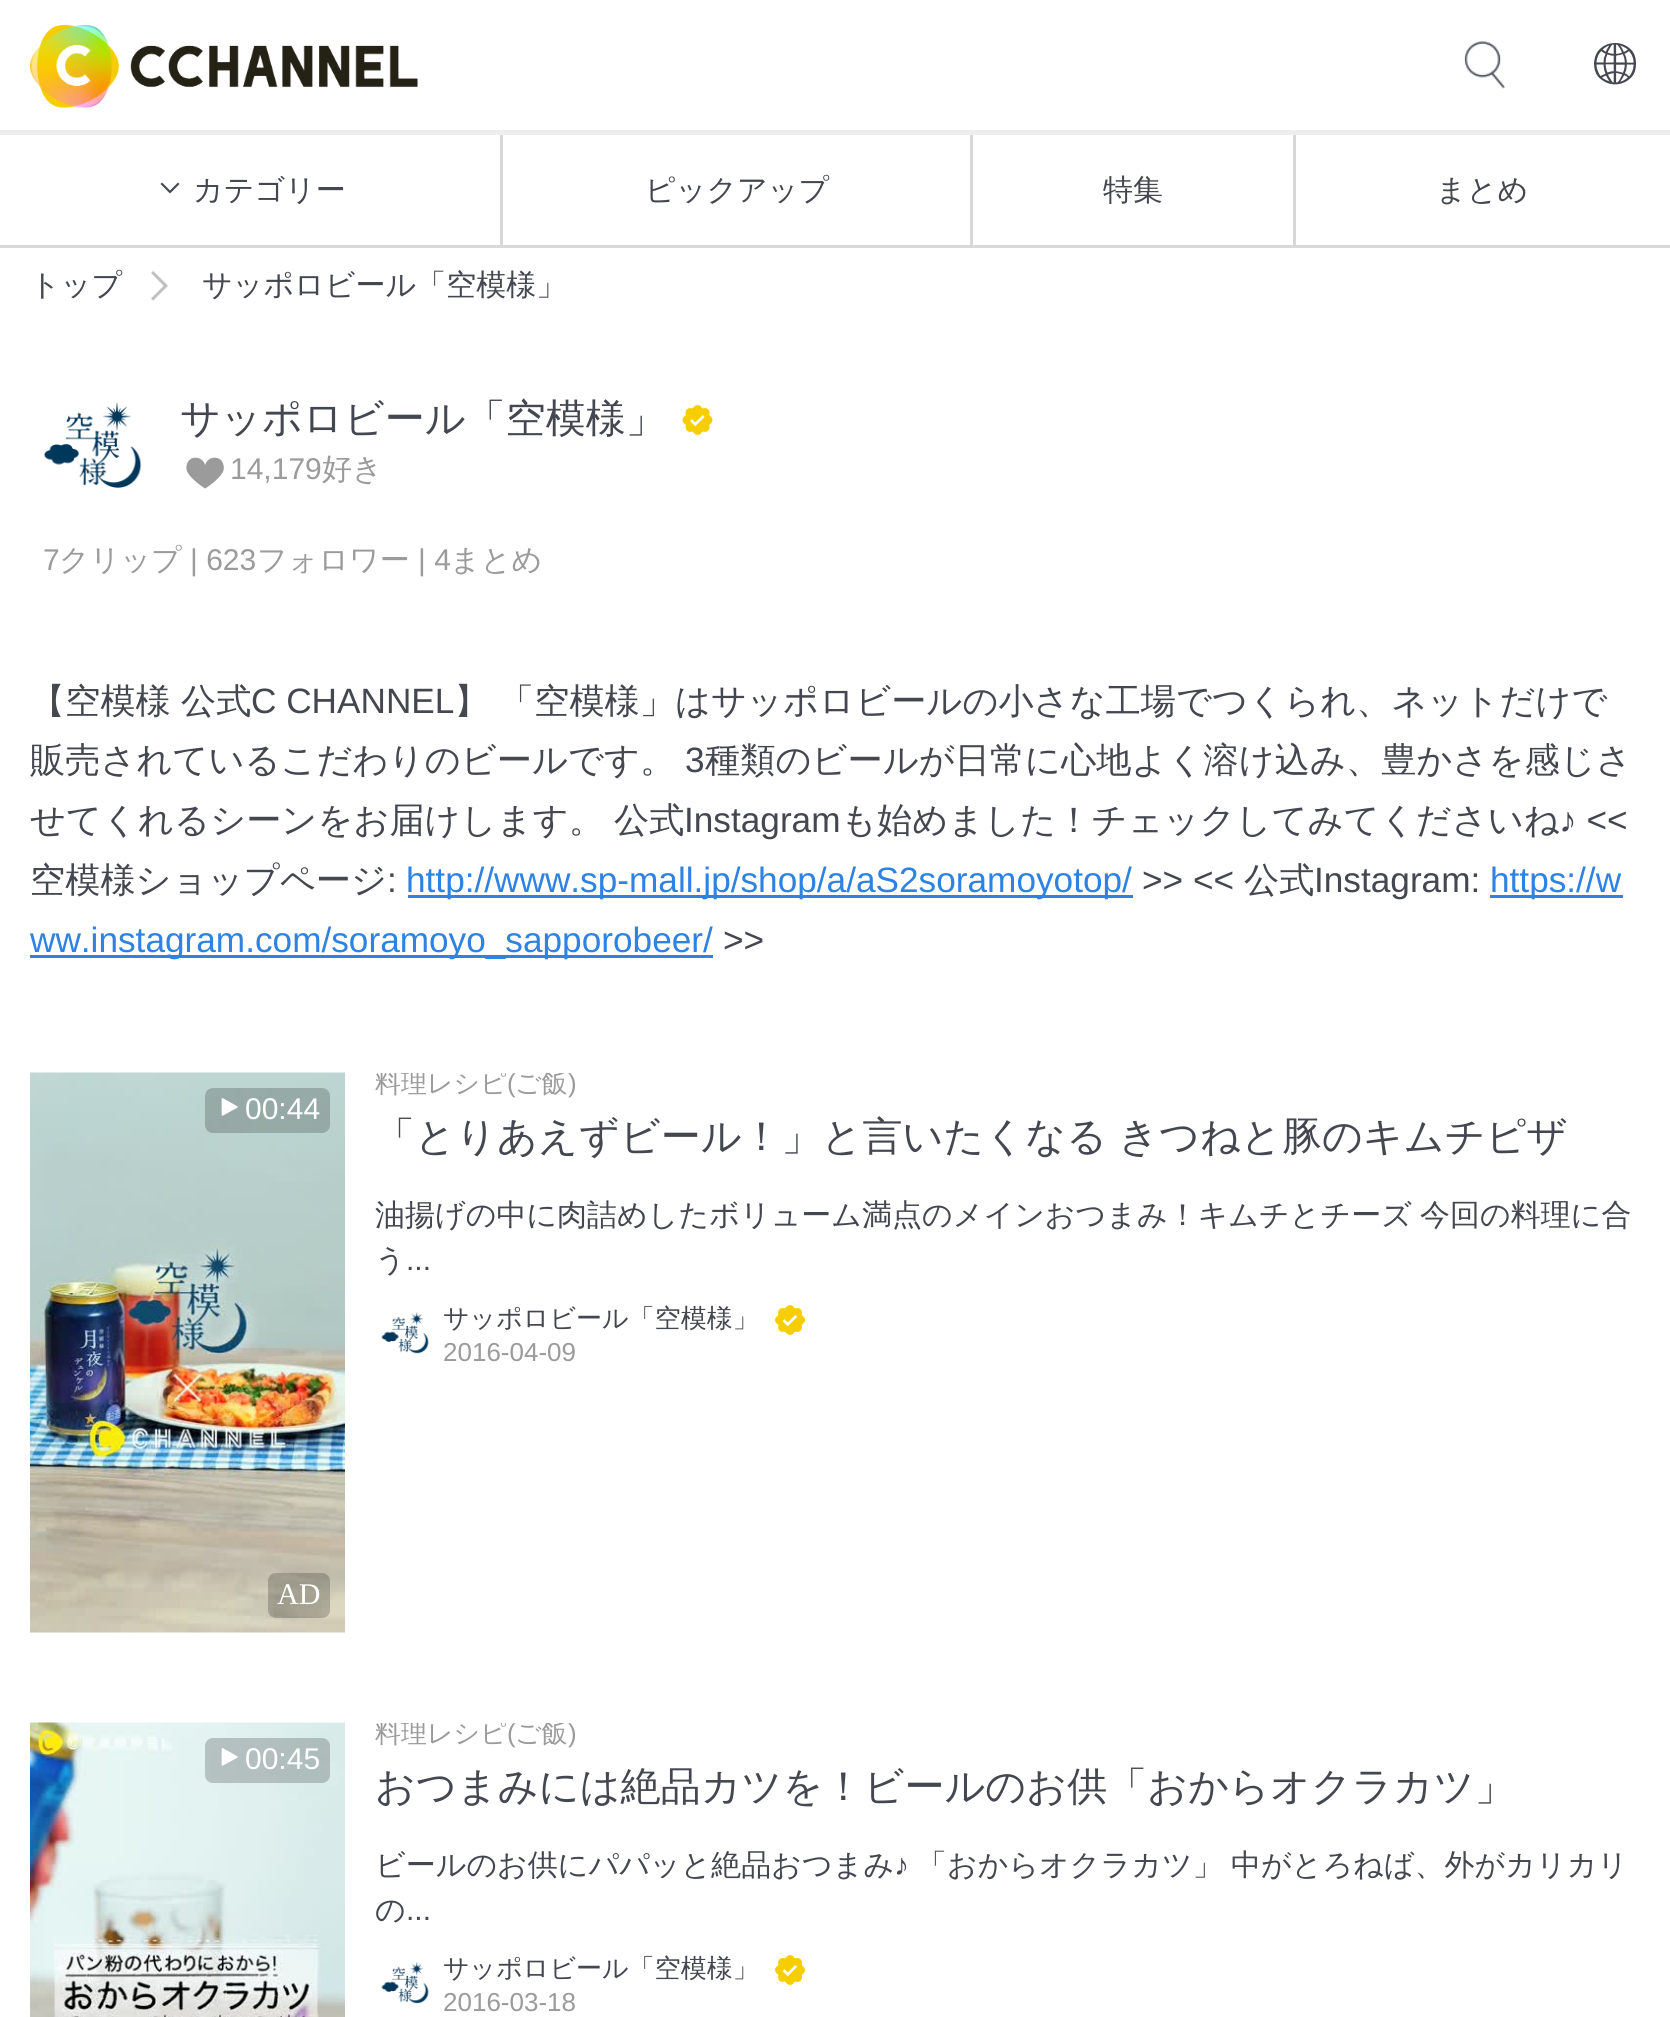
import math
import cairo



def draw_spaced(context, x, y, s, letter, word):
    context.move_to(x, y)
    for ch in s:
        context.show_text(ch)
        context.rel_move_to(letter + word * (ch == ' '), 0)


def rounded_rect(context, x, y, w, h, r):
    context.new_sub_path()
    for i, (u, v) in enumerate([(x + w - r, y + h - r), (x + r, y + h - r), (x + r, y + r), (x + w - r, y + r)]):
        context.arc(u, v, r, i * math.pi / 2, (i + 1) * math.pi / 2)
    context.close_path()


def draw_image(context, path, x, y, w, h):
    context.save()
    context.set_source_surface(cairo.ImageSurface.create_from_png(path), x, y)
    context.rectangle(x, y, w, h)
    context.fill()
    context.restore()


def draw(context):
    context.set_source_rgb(1, 1, 1)
    context.paint()
    context.set_source_rgb(238 / 255, 238 / 255, 238 / 255)
    context.rectangle(0, 130, 1670, 5)
    context.fill()
    draw_image(context, "images/1.png", 30, 25, 388, 83)
    draw_image(context, "images/2.png", 1464, 41, 41, 48)
    draw_image(context, "images/3.png", 1594, 42, 42, 43)
    context.set_source_rgb(216 / 255, 216 / 255, 216 / 255)
    context.rectangle(500, 135, 3, 113)
    context.fill()
    context.rectangle(0, 245, 503, 3)
    context.fill()
    context.set_source_rgb(68 / 255, 71 / 255, 80 / 255)
    context.new_path()
    context.move_to(170, 190.5)
    context.line_to(162, 182.5)
    context.line_to(160.5, 184)
    context.line_to(170, 193.5)
    context.line_to(179.5, 184)
    context.line_to(178, 182.5)
    context.close_path()
    context.fill()
    context.set_source_rgb(216 / 255, 216 / 255, 216 / 255)
    context.rectangle(970, 135, 3, 113)
    context.fill()
    context.rectangle(503, 245, 470, 3)
    context.fill()
    context.rectangle(1293, 135, 3, 113)
    context.fill()
    context.rectangle(973, 245, 697, 3)
    context.fill()
    draw_image(context, "images/4.png", 151, 270, 17, 31)
    draw_image(context, "images/5.png", 43, 402, 99, 86)
    draw_image(context, "images/6.png", 682, 405, 31, 30)
    draw_image(context, "images/7.png", 186, 457, 38, 32)
    context.set_source_rgb(46 / 255, 130 / 255, 226 / 255)
    context.rectangle(408, 895, 725, 3)
    context.fill()
    context.rectangle(1490, 895, 133, 3)
    context.fill()
    context.rectangle(30, 955, 683, 3)
    context.fill()
    draw_image(context, "images/8.png", 30, 1072, 315, 561)
    context.set_source_rgba(0, 0, 0, 0.2)
    rounded_rect(context, 205, 1088, 125, 45, 8)
    context.fill()
    draw_image(context, "images/9.png", 221, 1098, 17, 18)
    rounded_rect(context, 268, 1573, 62, 45, 8)
    context.fill()
    draw_image(context, "images/10.png", 381, 1312, 48, 42)
    draw_image(context, "images/11.png", 775, 1305, 30, 30)
    draw_image(context, "images/12.png", 30, 1722, 315, 295)
    rounded_rect(context, 205, 1738, 125, 45, 8)
    context.fill()
    draw_image(context, "images/13.png", 221, 1748, 17, 18)
    draw_image(context, "images/10.png", 381, 1962, 48, 42)
    draw_image(context, "images/11.png", 775, 1955, 30, 30)
    context.select_font_face("WenQuanYi Zen Hei Medium")
    context.set_font_size(30)
    context.set_source_rgb(68 / 255, 71 / 255, 80 / 255)
    context.move_to(193, 200)
    context.show_text("カテゴリー")
    context.move_to(645, 200)
    context.show_text("ピックアップ")
    context.move_to(1103, 200)
    context.show_text("特集")
    context.move_to(1436, 200)
    context.show_text("まとめ")
    context.move_to(30, 295)
    context.show_text("トップ")
    context.move_to(202, 295)
    context.show_text("サッポロビール「空模様」")
    context.set_font_size(40)
    context.move_to(180, 432)
    context.show_text("サッポロビール「空模様」")
    context.select_font_face("Liberation Sans")
    context.set_font_size(30)
    context.set_source_rgb(155 / 255, 155 / 255, 155 / 255)
    context.move_to(230, 479)
    context.show_text("14,179")
    context.select_font_face("WenQuanYi Zen Hei Medium")
    context.move_to(322, 479)
    context.show_text("好き")
    context.select_font_face("Liberation Sans")
    context.move_to(43, 570)
    context.show_text("7")
    context.select_font_face("WenQuanYi Zen Hei Medium")
    context.move_to(59, 570)
    context.show_text("クリップ")
    context.select_font_face("Liberation Sans")
    context.move_to(190, 570)
    context.show_text("| 623")
    context.select_font_face("WenQuanYi Zen Hei Medium")
    context.move_to(257, 570)
    context.show_text("フォロワー")
    context.select_font_face("Liberation Sans")
    context.move_to(418, 570)
    context.show_text("| 4")
    context.select_font_face("WenQuanYi Zen Hei Medium")
    context.move_to(450, 570)
    context.show_text("まとめ")
    context.set_font_size(35.2)
    context.set_source_rgb(68 / 255, 71 / 255, 80 / 255)
    context.move_to(30, 713)
    context.show_text("【空模様")
    context.move_to(181, 713)
    context.show_text("公式")
    context.select_font_face("Liberation Sans")
    context.move_to(251, 713)
    context.show_text("C CHANNEL")
    context.select_font_face("WenQuanYi Zen Hei Medium")
    context.move_to(454, 713)
    context.show_text("】")
    context.move_to(499, 713)
    context.show_text("「空模様」はサッポロビールの小さな工場でつくられ、ネットだけで")
    context.move_to(30, 772)
    context.show_text("販売されているこだわりのビールです。")
    context.select_font_face("Liberation Sans")
    context.move_to(685, 772)
    context.show_text("3")
    context.select_font_face("WenQuanYi Zen Hei Medium")
    context.move_to(705, 772)
    context.show_text("種類のビールが日常に心地よく溶け込み、豊かさを感じさ")
    context.move_to(30, 832)
    context.show_text("せてくれるシーンをお届けします。")
    context.move_to(614, 832)
    context.show_text("公式")
    context.select_font_face("Liberation Sans")
    context.move_to(684, 832)
    context.show_text("Instagram")
    context.select_font_face("WenQuanYi Zen Hei Medium")
    context.move_to(841, 832)
    context.show_text("も始めました！チェックしてみてくださいね")
    context.select_font_face("Liberation Sans")
    context.move_to(1559, 832)
    context.show_text("♪ <<")
    context.select_font_face("WenQuanYi Zen Hei Medium")
    context.move_to(30, 892)
    context.show_text("空模様ショップページ")
    context.select_font_face("Liberation Sans")
    context.move_to(387, 892)
    context.show_text(":")
    context.set_source_rgb(46 / 255, 130 / 255, 226 / 255)
    context.move_to(406, 892)
    context.show_text("http://www.sp-mall.jp/shop/a/aS2soramoyotop/")
    context.set_source_rgb(68 / 255, 71 / 255, 80 / 255)
    context.move_to(1142, 892)
    context.show_text(">> <<")
    context.select_font_face("WenQuanYi Zen Hei Medium")
    context.move_to(1244, 892)
    context.show_text("公式")
    context.select_font_face("Liberation Sans")
    context.move_to(1314, 892)
    context.show_text("Instagram:")
    context.set_source_rgb(46 / 255, 130 / 255, 226 / 255)
    context.move_to(1490, 892)
    context.show_text("https://w")
    context.move_to(30, 952)
    context.show_text("ww.instagram.com/soramoyo_sapporobeer/")
    context.set_source_rgb(68 / 255, 71 / 255, 80 / 255)
    context.move_to(723, 952)
    context.show_text(">>")
    context.set_font_size(30)
    context.set_source_rgb(1, 1, 1)
    context.move_to(245, 1119)
    context.show_text("00:44")
    context.select_font_face("Liberation Serif")
    context.move_to(277, 1604)
    context.show_text("AD")
    context.save()
    context.rectangle(345, 1073, 1295, 295)
    context.clip()
    context.select_font_face("WenQuanYi Zen Hei Medium")
    context.set_font_size(26)
    context.set_source_rgb(155 / 255, 155 / 255, 155 / 255)
    context.move_to(375, 1092)
    context.show_text("料理レシピ")
    context.restore()
    context.select_font_face("Liberation Sans")
    context.set_font_size(26)
    context.set_source_rgb(155 / 255, 155 / 255, 155 / 255)
    context.move_to(507, 1092)
    context.show_text("(")
    context.save()
    context.rectangle(345, 1073, 1295, 295)
    context.clip()
    context.select_font_face("WenQuanYi Zen Hei Medium")
    context.move_to(515, 1092)
    context.show_text("ご飯")
    context.restore()
    context.move_to(568, 1092)
    context.show_text(")")
    context.select_font_face("WenQuanYi Zen Hei Medium")
    context.set_font_size(40)
    context.set_source_rgb(68 / 255, 71 / 255, 80 / 255)
    draw_spaced(context, 375, 1150, "「とりあえずビール！」と言いたくなる きつねと豚のキムチピザ", 0, -1)
    context.set_font_size(30)
    context.move_to(375, 1225)
    context.show_text("油揚げの中に肉詰めしたボリューム満点のメインおつまみ！キムチとチーズ")
    context.move_to(1420, 1225)
    context.show_text("今回の料理に合")
    context.move_to(375, 1270)
    context.show_text("う")
    context.select_font_face("Liberation Sans")
    context.move_to(406, 1270)
    context.show_text("...")
    context.select_font_face("WenQuanYi Zen Hei Medium")
    context.set_font_size(26)
    context.move_to(443, 1327)
    context.show_text("サッポロビール「空模様」")
    context.select_font_face("Liberation Sans")
    context.set_source_rgb(155 / 255, 155 / 255, 155 / 255)
    context.move_to(443, 1361)
    context.show_text("2016-04-09")
    context.set_font_size(30)
    context.set_source_rgb(1, 1, 1)
    context.move_to(245, 1769)
    context.show_text("00:45")
    context.save()
    context.rectangle(345, 1723, 1295, 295)
    context.clip()
    context.select_font_face("WenQuanYi Zen Hei Medium")
    context.set_font_size(26)
    context.set_source_rgb(155 / 255, 155 / 255, 155 / 255)
    context.move_to(375, 1742)
    context.show_text("料理レシピ")
    context.restore()
    context.set_font_size(26)
    context.set_source_rgb(155 / 255, 155 / 255, 155 / 255)
    context.move_to(507, 1742)
    context.show_text("(")
    context.save()
    context.rectangle(345, 1723, 1295, 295)
    context.clip()
    context.select_font_face("WenQuanYi Zen Hei Medium")
    context.move_to(515, 1742)
    context.show_text("ご飯")
    context.restore()
    context.move_to(568, 1742)
    context.show_text(")")
    context.select_font_face("WenQuanYi Zen Hei Medium")
    context.set_font_size(40)
    context.set_source_rgb(68 / 255, 71 / 255, 80 / 255)
    context.move_to(375, 1800)
    context.show_text("おつまみには絶品カツを！ビールのお供「おからオクラカツ」")
    context.set_font_size(30)
    context.move_to(375, 1875)
    context.show_text("ビールのお供にパパッと絶品おつまみ")
    context.select_font_face("Liberation Sans")
    context.move_to(894, 1875)
    context.show_text("♪")
    context.select_font_face("WenQuanYi Zen Hei Medium")
    context.move_to(917, 1875)
    context.show_text("「おからオクラカツ」")
    context.move_to(1231, 1875)
    context.show_text("中がとろねば、外がカリカリ")
    context.move_to(375, 1920)
    context.show_text("の")
    context.select_font_face("Liberation Sans")
    context.move_to(406, 1920)
    context.show_text("...")
    context.select_font_face("WenQuanYi Zen Hei Medium")
    context.set_font_size(26)
    context.move_to(443, 1977)
    context.show_text("サッポロビール「空模様」")
    context.select_font_face("Liberation Sans")
    context.set_source_rgb(155 / 255, 155 / 255, 155 / 255)
    context.move_to(443, 2011)
    context.show_text("2016-03-18")


surface = cairo.ImageSurface(cairo.Format.RGB24, 1670, 2017)
context = cairo.Context(surface)
options = cairo.FontOptions()
options.set_hint_metrics(cairo.HintMetrics.OFF)
options.set_hint_style(cairo.HintStyle.NONE)
context.set_font_options(options)
context.set_miter_limit(4)
draw(context)
surface.write_to_png("out.png")
